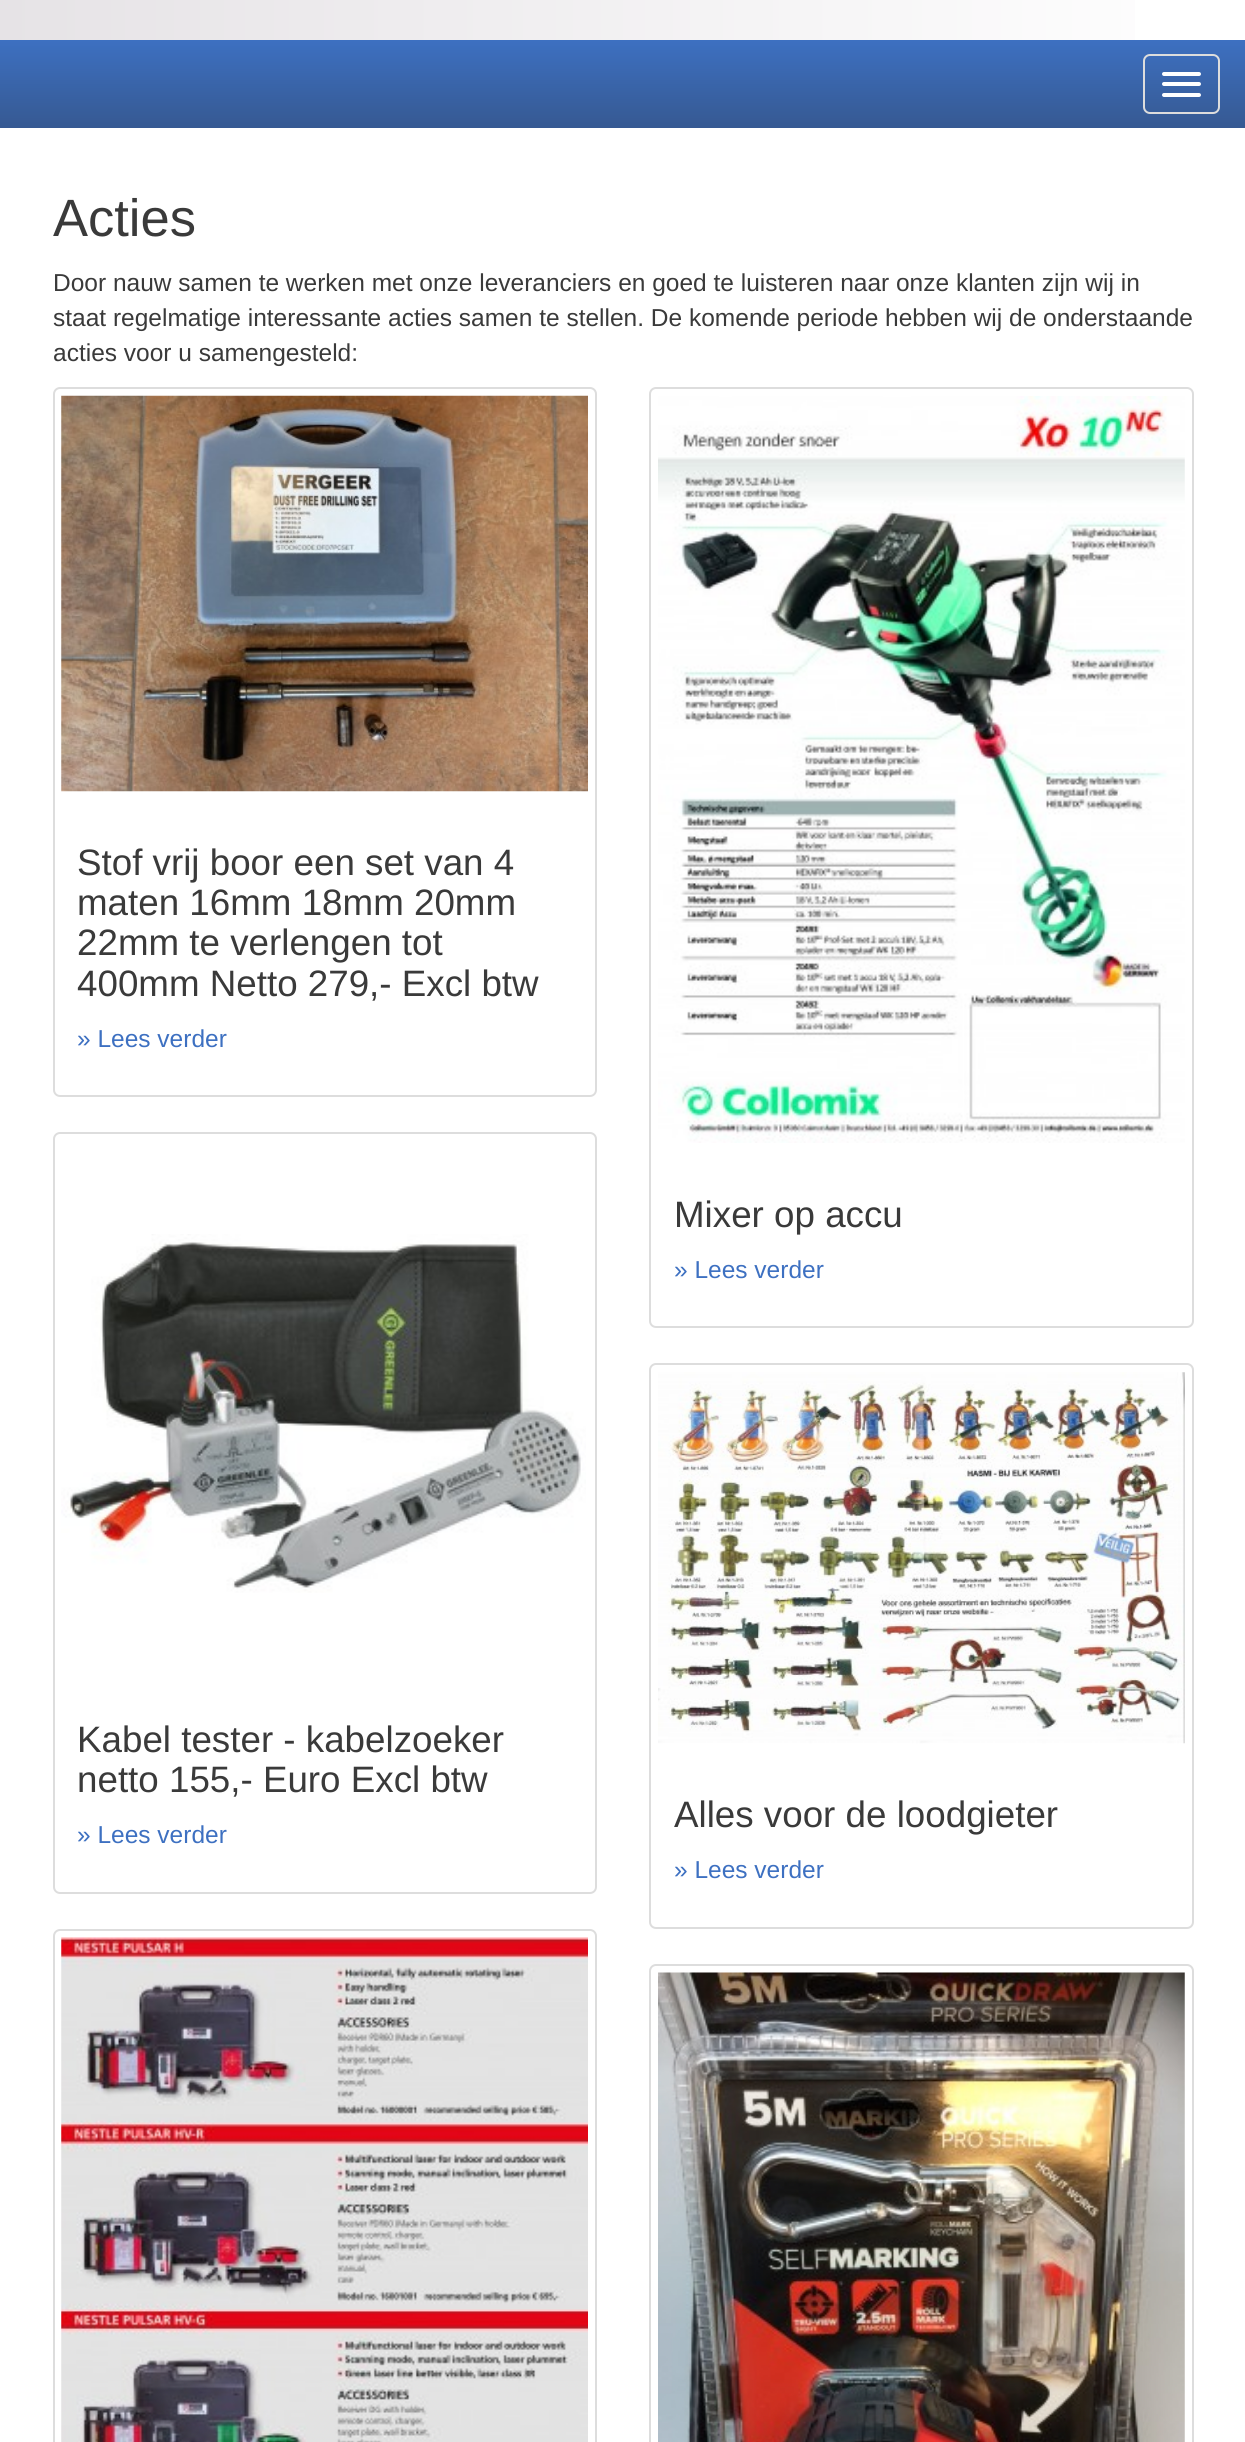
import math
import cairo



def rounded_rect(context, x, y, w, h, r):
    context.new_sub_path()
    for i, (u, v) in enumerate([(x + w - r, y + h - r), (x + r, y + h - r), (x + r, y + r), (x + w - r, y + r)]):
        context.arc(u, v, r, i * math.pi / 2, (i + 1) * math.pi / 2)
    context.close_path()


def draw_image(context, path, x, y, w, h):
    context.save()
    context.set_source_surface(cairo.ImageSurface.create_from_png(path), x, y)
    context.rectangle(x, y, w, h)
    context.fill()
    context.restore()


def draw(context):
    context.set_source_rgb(1, 1, 1)
    context.paint()
    gradient = cairo.LinearGradient(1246, -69, 0, -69)
    gradient.add_color_stop_rgba(0, 1, 1, 1, 1)
    gradient.add_color_stop_rgba(1, 230 / 255, 227 / 255, 230 / 255, 1)
    context.set_source(gradient)
    context.rectangle(0, 0, 1135, 40)
    context.fill()
    gradient = cairo.LinearGradient(623, 40, 623, 128)
    gradient.add_color_stop_rgba(0, 61 / 255, 112 / 255, 193 / 255, 1)
    gradient.add_color_stop_rgba(1, 54 / 255, 89 / 255, 146 / 255, 1)
    context.set_source(gradient)
    context.rectangle(0, 40, 1245, 88)
    context.fill()
    rounded_rect(context, 1144, 55, 75, 58, 6)
    context.set_source_rgb(221 / 255, 221 / 255, 221 / 255)
    context.stroke()
    context.set_source_rgb(1, 1, 1)
    rounded_rect(context, 1162, 72, 39, 4, 2)
    context.fill()
    rounded_rect(context, 1162, 82, 39, 4, 2)
    context.fill()
    rounded_rect(context, 1162, 93, 39, 4, 2)
    context.fill()
    rounded_rect(context, 54, 388, 542, 708, 6)
    context.set_source_rgb(221 / 255, 221 / 255, 221 / 255)
    context.stroke()
    draw_image(context, "images/1.png", 61, 395, 527, 397)
    rounded_rect(context, 650, 388, 543, 939, 6)
    context.stroke()
    draw_image(context, "images/2.png", 658, 396, 527, 747)
    rounded_rect(context, 54, 1133, 542, 760, 6)
    context.stroke()
    draw_image(context, "images/3.png", 61, 1234, 525, 359)
    rounded_rect(context, 650, 1364, 543, 564, 6)
    context.stroke()
    draw_image(context, "images/4.png", 658, 1372, 527, 372)
    rounded_rect(context, 54, 1930, 542, 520, 6)
    context.stroke()
    draw_image(context, "images/5.png", 61, 1937, 527, 505)
    rounded_rect(context, 650, 1965, 543, 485, 6)
    context.stroke()
    draw_image(context, "images/6.png", 658, 1972, 527, 470)
    context.select_font_face("Liberation Sans")
    context.set_font_size(52.5)
    context.set_source_rgb(58 / 255, 58 / 255, 58 / 255)
    context.move_to(53, 236)
    context.show_text("Acties")
    context.set_font_size(24.5)
    context.move_to(53, 291)
    context.show_text("Door nauw samen te werken met onze leveranciers en goed te luisteren naar onze klanten zijn wij in")
    context.move_to(53, 326)
    context.show_text("staat regelmatige interessante acties samen te stellen. De komende periode hebben wij de onderstaande")
    context.move_to(53, 361)
    context.show_text("acties voor u samengesteld:")
    context.set_font_size(36.75)
    context.move_to(77, 875)
    context.show_text("Stof vrij boor een set van 4")
    context.move_to(77, 915)
    context.show_text("maten 16mm 18mm 20mm")
    context.move_to(77, 955)
    context.show_text("22mm te verlengen tot")
    context.move_to(77, 996)
    context.show_text("400mm Netto 279,- Excl btw")
    context.set_font_size(24.5)
    context.set_source_rgb(61 / 255, 112 / 255, 193 / 255)
    context.move_to(77, 1047)
    context.show_text("» Lees verder")
    context.set_font_size(36.75)
    context.set_source_rgb(58 / 255, 58 / 255, 58 / 255)
    context.move_to(674, 1227)
    context.show_text("Mixer op accu")
    context.set_font_size(24.5)
    context.set_source_rgb(61 / 255, 112 / 255, 193 / 255)
    context.move_to(674, 1278)
    context.show_text("» Lees verder")
    context.set_font_size(36.75)
    context.set_source_rgb(58 / 255, 58 / 255, 58 / 255)
    context.move_to(77, 1752)
    context.show_text("Kabel tester - kabelzoeker")
    context.move_to(77, 1792)
    context.show_text("netto 155,- Euro Excl btw")
    context.set_font_size(24.5)
    context.set_source_rgb(61 / 255, 112 / 255, 193 / 255)
    context.move_to(77, 1843)
    context.show_text("» Lees verder")
    context.set_font_size(36.75)
    context.set_source_rgb(58 / 255, 58 / 255, 58 / 255)
    context.move_to(674, 1827)
    context.show_text("Alles voor de loodgieter")
    context.set_font_size(24.5)
    context.set_source_rgb(61 / 255, 112 / 255, 193 / 255)
    context.move_to(674, 1878)
    context.show_text("» Lees verder")


surface = cairo.ImageSurface(cairo.Format.RGB24, 1245, 2442)
context = cairo.Context(surface)
options = cairo.FontOptions()
options.set_hint_metrics(cairo.HintMetrics.OFF)
options.set_hint_style(cairo.HintStyle.NONE)
context.set_font_options(options)
context.set_miter_limit(4)
draw(context)
surface.write_to_png("out.png")
